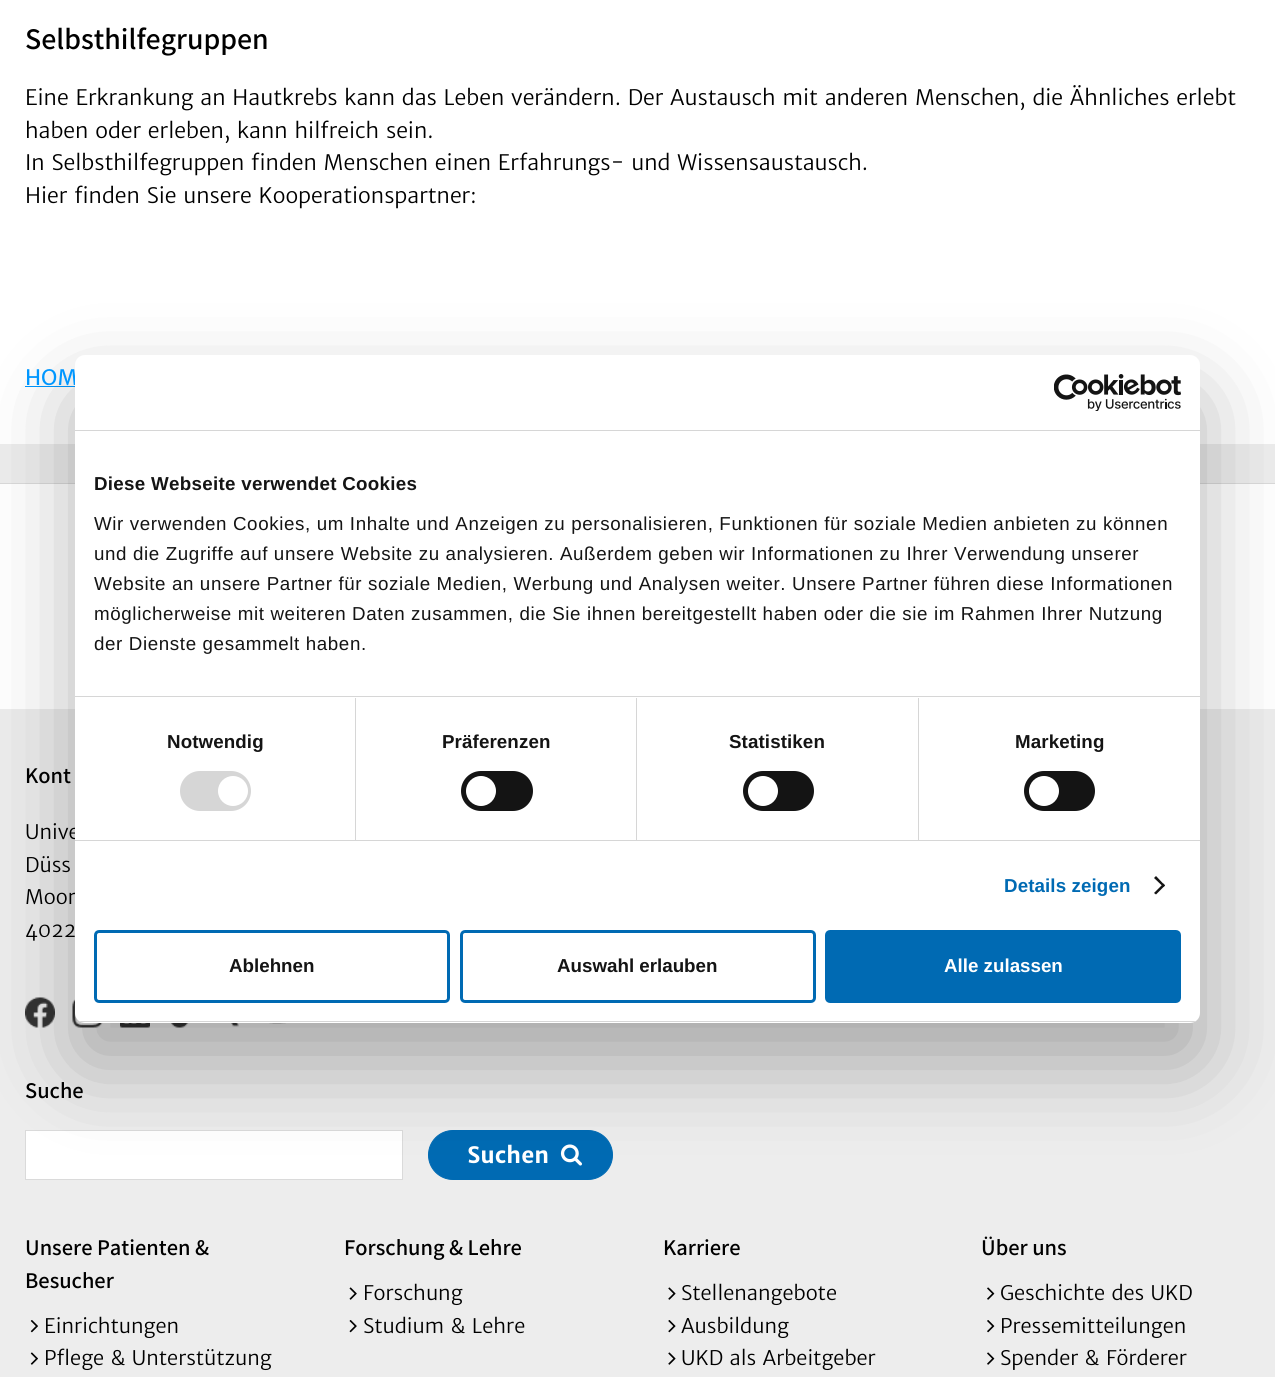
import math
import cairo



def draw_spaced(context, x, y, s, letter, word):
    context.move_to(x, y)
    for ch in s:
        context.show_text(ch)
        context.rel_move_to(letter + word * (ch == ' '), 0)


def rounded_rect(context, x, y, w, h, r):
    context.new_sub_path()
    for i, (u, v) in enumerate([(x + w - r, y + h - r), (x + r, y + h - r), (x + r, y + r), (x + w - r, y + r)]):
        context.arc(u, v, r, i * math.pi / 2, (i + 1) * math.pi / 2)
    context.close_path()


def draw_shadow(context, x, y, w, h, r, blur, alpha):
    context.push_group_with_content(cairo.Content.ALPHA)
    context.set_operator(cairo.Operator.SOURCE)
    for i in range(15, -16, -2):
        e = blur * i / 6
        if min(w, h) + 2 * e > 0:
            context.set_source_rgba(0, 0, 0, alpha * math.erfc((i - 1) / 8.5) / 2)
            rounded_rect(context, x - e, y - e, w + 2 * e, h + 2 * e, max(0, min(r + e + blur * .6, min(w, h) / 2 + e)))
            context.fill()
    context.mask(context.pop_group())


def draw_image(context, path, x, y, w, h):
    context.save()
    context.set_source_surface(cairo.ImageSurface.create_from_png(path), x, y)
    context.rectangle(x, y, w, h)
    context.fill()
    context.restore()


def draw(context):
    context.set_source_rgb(237 / 255, 237 / 255, 237 / 255)
    context.paint()
    context.set_source_rgb(1, 1, 1)
    context.rectangle(0, 0, 1275, 444)
    context.fill()
    context.set_source_rgb(0, 151 / 255, 1)
    context.rectangle(25, 386, 50, 1)
    context.fill()
    context.set_source_rgb(1, 1, 1)
    context.rectangle(0, 484, 1275, 225)
    context.fill()
    context.set_source_rgb(218 / 255, 218 / 255, 218 / 255)
    context.rectangle(0, 483, 1275, 1)
    context.fill()
    draw_image(context, "images/1.png", 25, 997, 30, 31)
    draw_image(context, "images/2.png", 72, 999, 31, 29)
    draw_image(context, "images/3.png", 120, 1023, 30, 5)
    draw_image(context, "images/4.png", 171, 1023, 18, 5)
    draw_image(context, "images/5.png", 231, 1023, 8, 4)
    draw_image(context, "images/6.png", 269, 1023, 17, 1)
    context.set_source_rgb(1, 1, 1)
    context.rectangle(25.5, 1130.5, 377, 49)
    context.fill_preserve()
    context.set_source_rgb(218 / 255, 218 / 255, 218 / 255)
    context.set_line_width(1)
    context.stroke()
    context.set_source_rgb(0, 106 / 255, 179 / 255)
    rounded_rect(context, 428.5, 1130.5, 184, 49, 24.5)
    context.fill_preserve()
    context.stroke()
    draw_image(context, "images/7.png", 560, 1144, 22, 22)
    draw_image(context, "images/8.png", 30, 1320, 8, 13)
    draw_image(context, "images/9.png", 30, 1352, 8, 13)
    draw_image(context, "images/10.png", 349, 1287, 8, 13)
    draw_image(context, "images/11.png", 349, 1320, 8, 13)
    draw_image(context, "images/12.png", 668, 1287, 8, 13)
    draw_image(context, "images/13.png", 668, 1320, 8, 13)
    draw_image(context, "images/12.png", 668, 1352, 8, 13)
    draw_image(context, "images/14.png", 987, 1287, 8, 13)
    draw_image(context, "images/15.png", 987, 1320, 8, 13)
    draw_image(context, "images/14.png", 987, 1352, 8, 13)
    context.set_source_rgb(0, 0, 0)
    draw_shadow(context, 75, 395, 1125, 668, 10, 42.5, 0.3)
    context.select_font_face("Assistant SemiBold")
    context.set_font_size(30)
    context.set_source_rgb(0, 0, 0)
    context.move_to(25, 49)
    context.show_text("Selbsthilfegruppen")
    context.select_font_face("Merriweather Sans Light")
    context.set_font_size(21.25)
    context.move_to(25, 105)
    context.show_text("Eine Erkrankung an Hautkrebs kann das Leben verändern. Der Austausch mit anderen Menschen, die Ähnliches erlebt")
    context.move_to(25, 138)
    context.show_text("haben oder erleben, kann hilfreich sein.")
    context.move_to(25, 170)
    context.show_text("In Selbsthilfegruppen finden Menschen einen Erfahrungs- und Wissensaustausch.")
    context.move_to(25, 203)
    context.show_text("Hier finden Sie unsere Kooperationspartner:")
    context.select_font_face("Merriweather Sans")
    context.set_source_rgb(0, 151 / 255, 1)
    context.move_to(25, 385)
    context.show_text("HOM")
    context.select_font_face("Assistant SemiBold")
    context.set_font_size(22.5)
    context.set_source_rgb(0, 0, 0)
    context.move_to(25, 783)
    context.show_text("Kont")
    context.select_font_face("Merriweather Sans Light")
    context.set_font_size(20)
    context.move_to(25, 839)
    context.show_text("Unive")
    context.move_to(25, 872)
    context.show_text("Düss")
    context.move_to(25, 904)
    context.show_text("Moor")
    context.move_to(25, 937)
    context.show_text("4022")
    context.select_font_face("Assistant SemiBold")
    context.set_font_size(22.5)
    context.move_to(25, 1098)
    context.show_text("Suche")
    context.select_font_face("Merriweather Sans", cairo.FontSlant.NORMAL, cairo.FontWeight.BOLD)
    context.set_source_rgb(1, 1, 1)
    context.move_to(467, 1163)
    context.show_text("Suchen")
    context.select_font_face("Assistant SemiBold")
    context.set_source_rgb(0, 0, 0)
    context.move_to(25, 1255)
    context.show_text("Unsere Patienten &")
    context.move_to(25, 1288)
    context.show_text("Besucher")
    context.select_font_face("Merriweather Sans Light")
    context.set_font_size(20)
    context.move_to(44, 1333)
    context.show_text("Einrichtungen")
    context.move_to(44, 1365)
    context.show_text("Pflege & Unterstützung")
    context.select_font_face("Assistant SemiBold")
    context.set_font_size(22.5)
    context.move_to(344, 1255)
    context.show_text("Forschung & Lehre")
    context.select_font_face("Merriweather Sans Light")
    context.set_font_size(20)
    context.move_to(363, 1300)
    context.show_text("Forschung")
    context.move_to(363, 1333)
    context.show_text("Studium & Lehre")
    context.select_font_face("Assistant SemiBold")
    context.set_font_size(22.5)
    context.move_to(663, 1255)
    context.show_text("Karriere")
    context.select_font_face("Merriweather Sans Light")
    context.set_font_size(20)
    context.move_to(681, 1300)
    context.show_text("Stellenangebote")
    context.move_to(681, 1333)
    context.show_text("Ausbildung")
    context.move_to(681, 1365)
    context.show_text("UKD als Arbeitgeber")
    context.select_font_face("Assistant SemiBold")
    context.set_font_size(22.5)
    context.move_to(981, 1255)
    context.show_text("Über uns")
    context.select_font_face("Merriweather Sans Light")
    context.set_font_size(20)
    context.move_to(1000, 1300)
    context.show_text("Geschichte des UKD")
    context.move_to(1000, 1333)
    context.show_text("Pressemitteilungen")
    context.move_to(1000, 1365)
    context.show_text("Spender & Förderer")
    context.set_source_rgb(1, 1, 1)
    rounded_rect(context, 75, 355, 1125, 668, 10)
    context.fill()
    context.set_source_rgb(214 / 255, 214 / 255, 214 / 255)
    context.rectangle(75, 430, 1125, 1)
    context.fill()
    draw_image(context, "images/16.png", 1054, 374, 127, 37)
    context.rectangle(75, 696, 1125, 1)
    context.fill()
    context.select_font_face("Liberation Sans", cairo.FontSlant.NORMAL, cairo.FontWeight.BOLD)
    context.set_font_size(18.75)
    context.set_source_rgb(20 / 255, 20 / 255, 20 / 255)
    draw_spaced(context, 94, 490, "Diese Webseite verwendet Cookies", 0.3, 0)
    context.select_font_face("Liberation Sans")
    draw_spaced(context, 94, 530, "Wir verwenden Cookies, um Inhalte und Anzeigen zu personalisieren, Funktionen für soziale Medien anbieten zu können", 0.62, 0)
    draw_spaced(context, 94, 560, "und die Zugriffe auf unsere Website zu analysieren. Außerdem geben wir Informationen zu Ihrer Verwendung unserer", 0.62, 0)
    draw_spaced(context, 94, 590, "Website an unsere Partner für soziale Medien, Werbung und Analysen weiter. Unsere Partner führen diese Informationen", 0.62, 0)
    draw_spaced(context, 94, 620, "möglicherweise mit weiteren Daten zusammen, die Sie ihnen bereitgestellt haben oder die sie im Rahmen Ihrer Nutzung", 0.62, 0)
    draw_spaced(context, 94, 650, "der Dienste gesammelt haben.", 0.62, 0)
    context.set_source_rgb(214 / 255, 214 / 255, 214 / 255)
    context.rectangle(75, 840, 1125, 1)
    context.fill()
    context.rectangle(355, 698, 1, 142)
    context.fill()
    context.select_font_face("Liberation Sans", cairo.FontSlant.NORMAL, cairo.FontWeight.BOLD)
    context.set_source_rgb(20 / 255, 20 / 255, 20 / 255)
    draw_spaced(context, 167, 748, "Notwendig", 0.1, 0)
    context.set_source_rgb(214 / 255, 214 / 255, 214 / 255)
    rounded_rect(context, 180, 771, 71, 40, 20)
    context.fill()
    context.set_source_rgb(1, 1, 1)
    context.arc(233, 791, 15, 0, 2 * math.pi)
    context.fill()
    context.set_source_rgb(214 / 255, 214 / 255, 214 / 255)
    context.rectangle(636, 698, 1, 142)
    context.fill()
    context.set_source_rgb(20 / 255, 20 / 255, 20 / 255)
    draw_spaced(context, 442, 748, "Präferenzen", 0.1, 0)
    rounded_rect(context, 461, 771, 72, 40, 20)
    context.fill()
    context.set_source_rgb(1, 1, 1)
    context.arc(481, 791, 15, 0, 2 * math.pi)
    context.fill()
    context.set_source_rgb(214 / 255, 214 / 255, 214 / 255)
    context.rectangle(918, 698, 1, 142)
    context.fill()
    context.set_source_rgb(20 / 255, 20 / 255, 20 / 255)
    draw_spaced(context, 729, 748, "Statistiken", 0.1, 0)
    rounded_rect(context, 743, 771, 71, 40, 20)
    context.fill()
    context.set_source_rgb(1, 1, 1)
    context.arc(763, 791, 15, 0, 2 * math.pi)
    context.fill()
    context.set_source_rgb(20 / 255, 20 / 255, 20 / 255)
    draw_spaced(context, 1015, 748, "Marketing", 0.1, 0)
    rounded_rect(context, 1024, 771, 71, 40, 20)
    context.fill()
    context.set_source_rgb(1, 1, 1)
    context.arc(1044, 791, 15, 0, 2 * math.pi)
    context.fill()
    context.set_source_rgb(0, 106 / 255, 179 / 255)
    draw_spaced(context, 1004, 892, "Details zeigen", 0.1, 0)
    context.set_source_rgb(20 / 255, 20 / 255, 20 / 255)
    context.new_path()
    context.move_to(1156, 876)
    context.line_to(1165, 885.5)
    context.line_to(1163.5, 887)
    context.line_to(1154, 878)
    context.close_path()
    context.fill()
    context.new_path()
    context.move_to(1163.5, 883.5)
    context.line_to(1165, 885.5)
    context.line_to(1156, 894.5)
    context.line_to(1154, 893)
    context.close_path()
    context.fill()
    context.save()
    rounded_rect(context, 75, 355, 1125, 668, 10)
    context.clip()
    context.set_source_rgb(214 / 255, 214 / 255, 214 / 255)
    context.rectangle(75, 1021, 1125, 1)
    context.fill()
    context.restore()
    rounded_rect(context, 95.5, 931.5, 353, 70, 3.5)
    context.set_source_rgb(0, 106 / 255, 179 / 255)
    context.set_line_width(3)
    context.stroke()
    context.set_source_rgb(20 / 255, 20 / 255, 20 / 255)
    context.move_to(229, 972)
    context.show_text("Ablehnen")
    rounded_rect(context, 461.5, 931.5, 353, 70, 3.5)
    context.set_source_rgb(0, 106 / 255, 179 / 255)
    context.stroke()
    context.set_source_rgb(20 / 255, 20 / 255, 20 / 255)
    context.move_to(557, 972)
    context.show_text("Auswahl erlauben")
    context.set_source_rgb(0, 106 / 255, 179 / 255)
    rounded_rect(context, 826.5, 931.5, 353, 70, 3.5)
    context.fill_preserve()
    context.stroke()
    context.set_source_rgb(1, 1, 1)
    context.move_to(944, 972)
    context.show_text("Alle zulassen")


surface = cairo.ImageSurface(cairo.Format.RGB24, 1275, 1377)
context = cairo.Context(surface)
options = cairo.FontOptions()
options.set_hint_metrics(cairo.HintMetrics.OFF)
options.set_hint_style(cairo.HintStyle.NONE)
context.set_font_options(options)
context.set_miter_limit(4)
draw(context)
surface.write_to_png("out.png")
